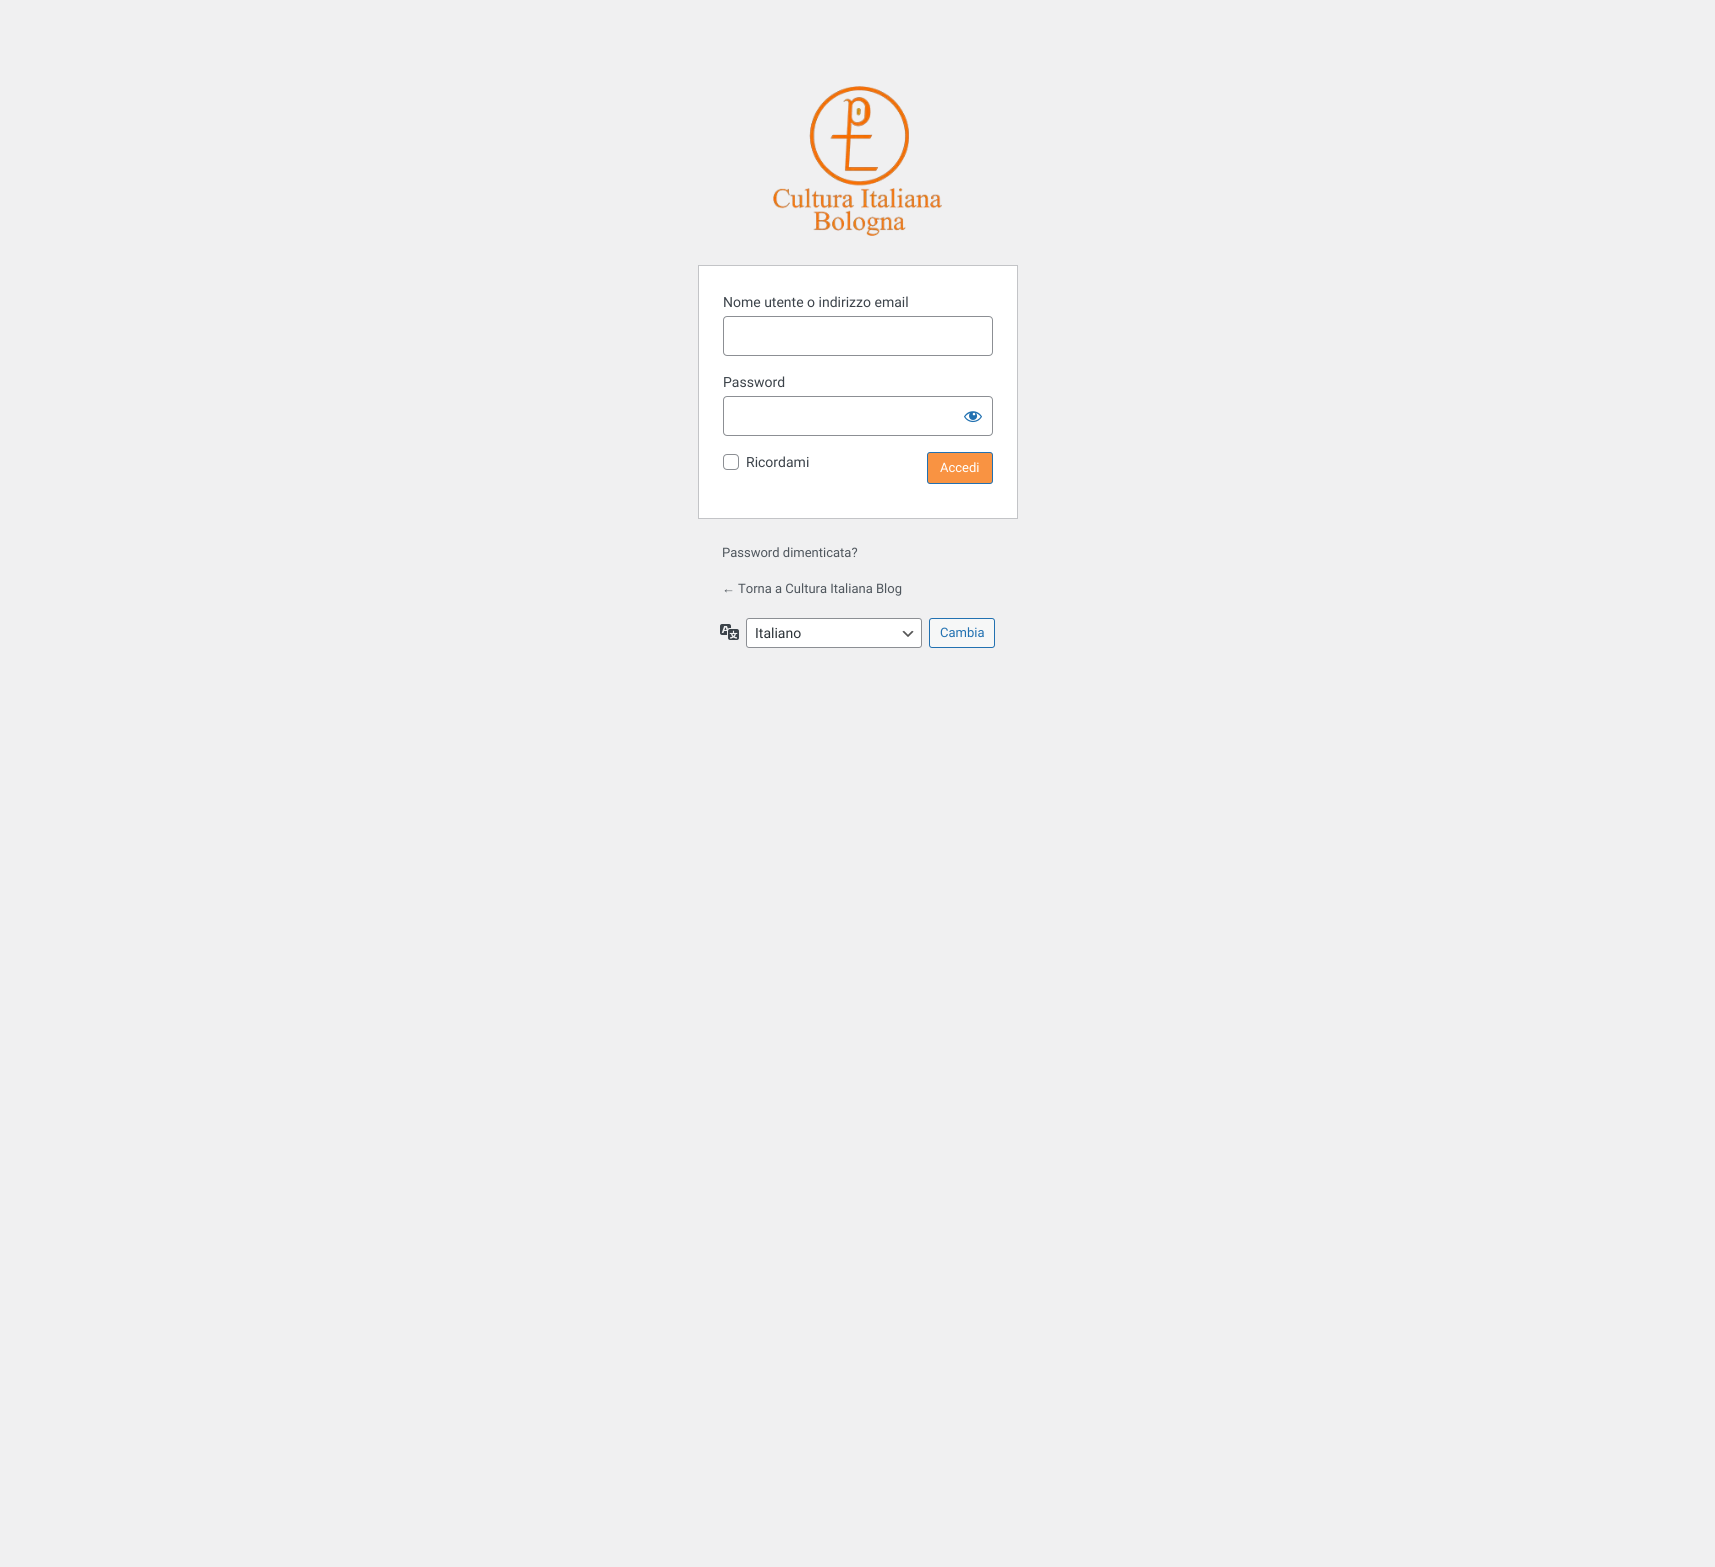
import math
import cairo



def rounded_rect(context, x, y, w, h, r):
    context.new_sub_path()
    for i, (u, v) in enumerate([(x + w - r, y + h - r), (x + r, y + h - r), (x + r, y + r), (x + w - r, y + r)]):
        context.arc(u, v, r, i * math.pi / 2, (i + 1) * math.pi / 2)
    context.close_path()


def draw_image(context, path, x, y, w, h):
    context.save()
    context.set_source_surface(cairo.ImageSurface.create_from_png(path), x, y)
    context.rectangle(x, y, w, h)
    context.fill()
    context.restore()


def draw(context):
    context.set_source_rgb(240 / 255, 240 / 255, 241 / 255)
    context.paint()
    draw_image(context, "images/1.png", 773, 86, 169, 150)
    context.set_source_rgb(1, 1, 1)
    context.rectangle(698.5, 265.5, 319, 253)
    context.fill_preserve()
    context.set_source_rgb(195 / 255, 196 / 255, 199 / 255)
    context.set_line_width(1)
    context.stroke()
    rounded_rect(context, 723.5, 316.5, 269, 39, 3.5)
    context.set_source_rgb(140 / 255, 143 / 255, 148 / 255)
    context.stroke()
    rounded_rect(context, 723.5, 396.5, 269, 39, 3.5)
    context.stroke()
    draw_image(context, "images/2.png", 964, 411, 18, 12)
    rounded_rect(context, 723.5, 454.5, 15, 15, 3.5)
    context.stroke()
    context.set_source_rgb(249 / 255, 147 / 255, 66 / 255)
    rounded_rect(context, 927.5, 452.5, 65, 31, 2.5)
    context.fill_preserve()
    context.set_source_rgb(34 / 255, 113 / 255, 177 / 255)
    context.stroke()
    draw_image(context, "images/3.png", 720, 624, 19, 16)
    context.set_source_rgb(1, 1, 1)
    rounded_rect(context, 746, 618, 176, 30, 3)
    context.fill()
    draw_image(context, "images/4.png", 902, 630, 12, 7)
    rounded_rect(context, 746.5, 618.5, 175, 29, 2.5)
    context.set_source_rgb(140 / 255, 143 / 255, 148 / 255)
    context.stroke()
    context.set_source_rgb(246 / 255, 247 / 255, 247 / 255)
    rounded_rect(context, 929.5, 618.5, 65, 29, 2.5)
    context.fill_preserve()
    context.set_source_rgb(34 / 255, 113 / 255, 177 / 255)
    context.stroke()
    context.select_font_face("Roboto")
    context.set_font_size(14)
    context.set_source_rgb(60 / 255, 67 / 255, 74 / 255)
    context.move_to(723, 307)
    context.show_text("Nome utente o indirizzo email")
    context.move_to(723, 387)
    context.show_text("Password")
    context.move_to(746, 467)
    context.show_text("Ricordami")
    context.set_font_size(13)
    context.set_source_rgb(1, 1, 1)
    context.move_to(940, 472)
    context.show_text("Accedi")
    context.set_source_rgb(80 / 255, 87 / 255, 94 / 255)
    context.move_to(722, 557)
    context.show_text("Password dimenticata?")
    context.select_font_face("Liberation Sans")
    context.move_to(722, 593)
    context.show_text("←")
    context.select_font_face("Roboto")
    context.move_to(738, 593)
    context.show_text("Torna a Cultura Italiana Blog")
    context.set_font_size(14)
    context.set_source_rgb(44 / 255, 51 / 255, 56 / 255)
    context.move_to(755, 638)
    context.show_text("Italiano")
    context.set_font_size(13)
    context.set_source_rgb(34 / 255, 113 / 255, 177 / 255)
    context.move_to(940, 637)
    context.show_text("Cambia")


surface = cairo.ImageSurface(cairo.Format.RGB24, 1715, 1567)
context = cairo.Context(surface)
options = cairo.FontOptions()
options.set_hint_metrics(cairo.HintMetrics.OFF)
options.set_hint_style(cairo.HintStyle.NONE)
context.set_font_options(options)
context.set_miter_limit(4)
draw(context)
surface.write_to_png("out.png")
